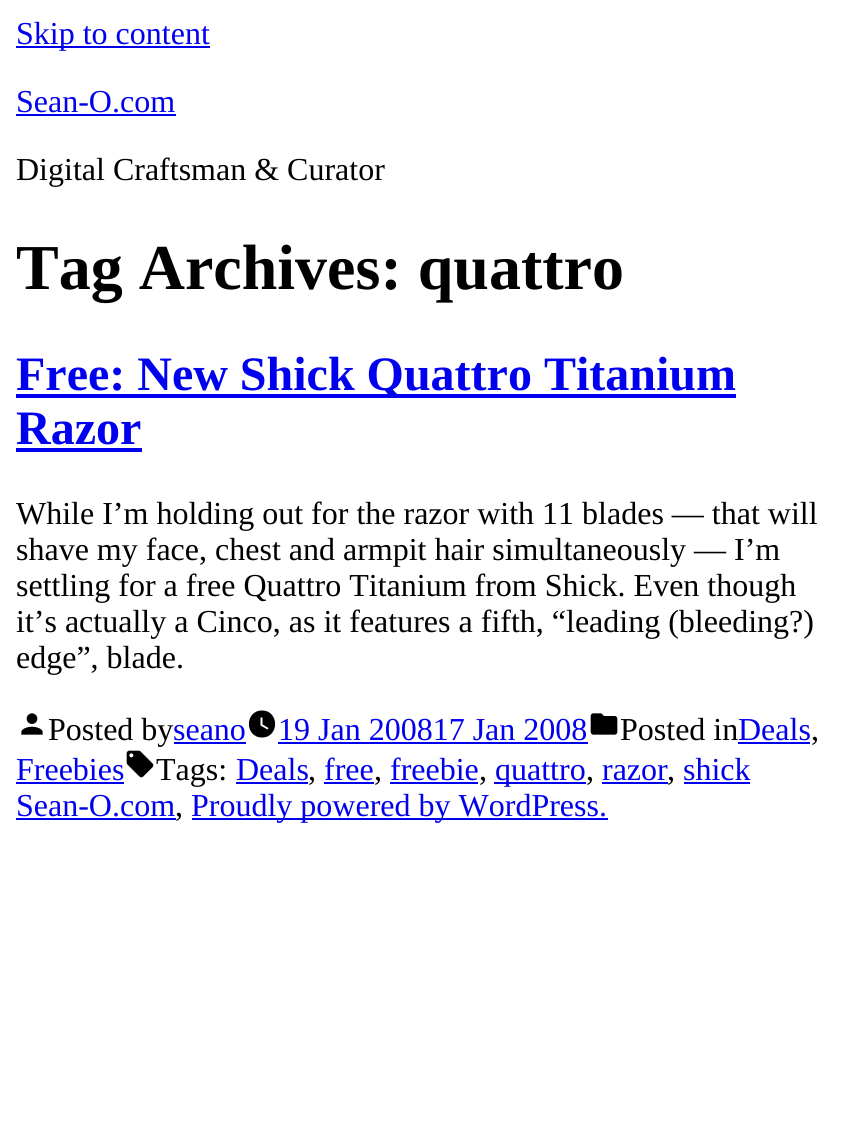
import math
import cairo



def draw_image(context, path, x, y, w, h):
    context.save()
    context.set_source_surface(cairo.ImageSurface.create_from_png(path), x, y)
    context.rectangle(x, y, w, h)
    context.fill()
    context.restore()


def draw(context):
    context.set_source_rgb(1, 1, 1)
    context.paint()
    context.set_source_rgb(0, 0, 238 / 255)
    context.rectangle(16, 46, 194, 2)
    context.fill()
    context.rectangle(16, 114, 160, 2)
    context.fill()
    context.rectangle(16, 394, 720, 4)
    context.fill()
    context.rectangle(16, 448, 126, 4)
    context.fill()
    draw_image(context, "images/1.png", 21, 713, 22, 22)
    context.rectangle(174, 742, 72, 2)
    context.fill()
    context.rectangle(278, 742, 310, 2)
    context.fill()
    context.set_source_rgb(0, 0, 0)
    context.new_path()
    context.move_to(262, 710.5)
    context.curve_to(244.5, 710.5, 244.5, 737.5, 262, 737.5)
    context.curve_to(279.5, 737.5, 279.5, 710.5, 262, 710.5)
    context.close_path()
    context.move_to(267.5, 729.5)
    context.line_to(260.5, 725.5)
    context.line_to(260.5, 717.5)
    context.line_to(262.5, 717.5)
    context.line_to(262.5, 724.5)
    context.line_to(268.5, 728)
    context.close_path()
    context.fill()
    draw_image(context, "images/2.png", 590, 713, 28, 22)
    context.set_source_rgb(0, 0, 238 / 255)
    context.rectangle(738, 742, 72, 2)
    context.fill()
    context.rectangle(16, 782, 108, 2)
    context.fill()
    draw_image(context, "images/3.png", 126, 750, 28, 28)
    context.rectangle(236, 782, 72, 2)
    context.fill()
    context.rectangle(324, 782, 50, 2)
    context.fill()
    context.rectangle(390, 782, 88, 2)
    context.fill()
    context.rectangle(494, 782, 92, 2)
    context.fill()
    context.rectangle(602, 782, 66, 2)
    context.fill()
    context.rectangle(684, 782, 66, 2)
    context.fill()
    context.rectangle(16, 818, 160, 2)
    context.fill()
    context.rectangle(192, 818, 416, 2)
    context.fill()
    context.select_font_face("Liberation Serif")
    context.set_font_size(32)
    context.move_to(16, 44)
    context.show_text("Skip to content")
    context.move_to(16, 112)
    context.show_text("Sean-O.com")
    context.set_source_rgb(0, 0, 0)
    context.move_to(16, 180)
    context.show_text("Digital Craftsman & Curator")
    context.select_font_face("Liberation Serif", cairo.FontSlant.NORMAL, cairo.FontWeight.BOLD)
    context.set_font_size(64)
    context.move_to(16, 289)
    context.show_text("Tag Archives: quattro")
    context.set_font_size(48)
    context.set_source_rgb(0, 0, 238 / 255)
    context.move_to(16, 390)
    context.show_text("Free: New Shick Quattro Titanium")
    context.move_to(16, 444)
    context.show_text("Razor")
    context.select_font_face("Liberation Serif")
    context.set_font_size(32)
    context.set_source_rgb(0, 0, 0)
    context.move_to(16, 524)
    context.show_text("While I’m holding out for the razor with 11 blades — that will")
    context.move_to(16, 560)
    context.show_text("shave my face, chest and armpit hair simultaneously — I’m")
    context.move_to(16, 596)
    context.show_text("settling for a free Quattro Titanium from Shick. Even though")
    context.move_to(16, 632)
    context.show_text("it’s actually a Cinco, as it features a fifth, “leading (bleeding?)")
    context.move_to(16, 668)
    context.show_text("edge”, blade.")
    context.move_to(48, 740)
    context.show_text("Posted by")
    context.set_source_rgb(0, 0, 238 / 255)
    context.move_to(173, 740)
    context.show_text("seano")
    context.move_to(278, 740)
    context.show_text("19 Jan 200817 Jan 2008")
    context.set_source_rgb(0, 0, 0)
    context.move_to(620, 740)
    context.show_text("Posted in")
    context.set_source_rgb(0, 0, 238 / 255)
    context.move_to(738, 740)
    context.show_text("Deals")
    context.set_source_rgb(0, 0, 0)
    context.move_to(811, 740)
    context.show_text(",")
    context.set_source_rgb(0, 0, 238 / 255)
    context.move_to(16, 780)
    context.show_text("Freebies")
    context.set_source_rgb(0, 0, 0)
    context.move_to(156, 780)
    context.show_text("Tags:")
    context.set_source_rgb(0, 0, 238 / 255)
    context.move_to(236, 780)
    context.show_text("Deals")
    context.set_source_rgb(0, 0, 0)
    context.move_to(308, 780)
    context.show_text(",")
    context.set_source_rgb(0, 0, 238 / 255)
    context.move_to(324, 780)
    context.show_text("free")
    context.set_source_rgb(0, 0, 0)
    context.move_to(374, 780)
    context.show_text(",")
    context.set_source_rgb(0, 0, 238 / 255)
    context.move_to(390, 780)
    context.show_text("freebie")
    context.set_source_rgb(0, 0, 0)
    context.move_to(479, 780)
    context.show_text(",")
    context.set_source_rgb(0, 0, 238 / 255)
    context.move_to(495, 780)
    context.show_text("quattro")
    context.set_source_rgb(0, 0, 0)
    context.move_to(586, 780)
    context.show_text(",")
    context.set_source_rgb(0, 0, 238 / 255)
    context.move_to(602, 780)
    context.show_text("razor")
    context.set_source_rgb(0, 0, 0)
    context.move_to(667, 780)
    context.show_text(",")
    context.set_source_rgb(0, 0, 238 / 255)
    context.move_to(683, 780)
    context.show_text("shick")
    context.move_to(16, 816)
    context.show_text("Sean-O.com")
    context.set_source_rgb(0, 0, 0)
    context.move_to(175, 816)
    context.show_text(",")
    context.set_source_rgb(0, 0, 238 / 255)
    context.move_to(191, 816)
    context.show_text("Proudly powered by WordPress.")


surface = cairo.ImageSurface(cairo.Format.RGB24, 848, 1123)
context = cairo.Context(surface)
options = cairo.FontOptions()
options.set_hint_metrics(cairo.HintMetrics.OFF)
options.set_hint_style(cairo.HintStyle.NONE)
context.set_font_options(options)
context.set_miter_limit(4)
draw(context)
surface.write_to_png("out.png")
